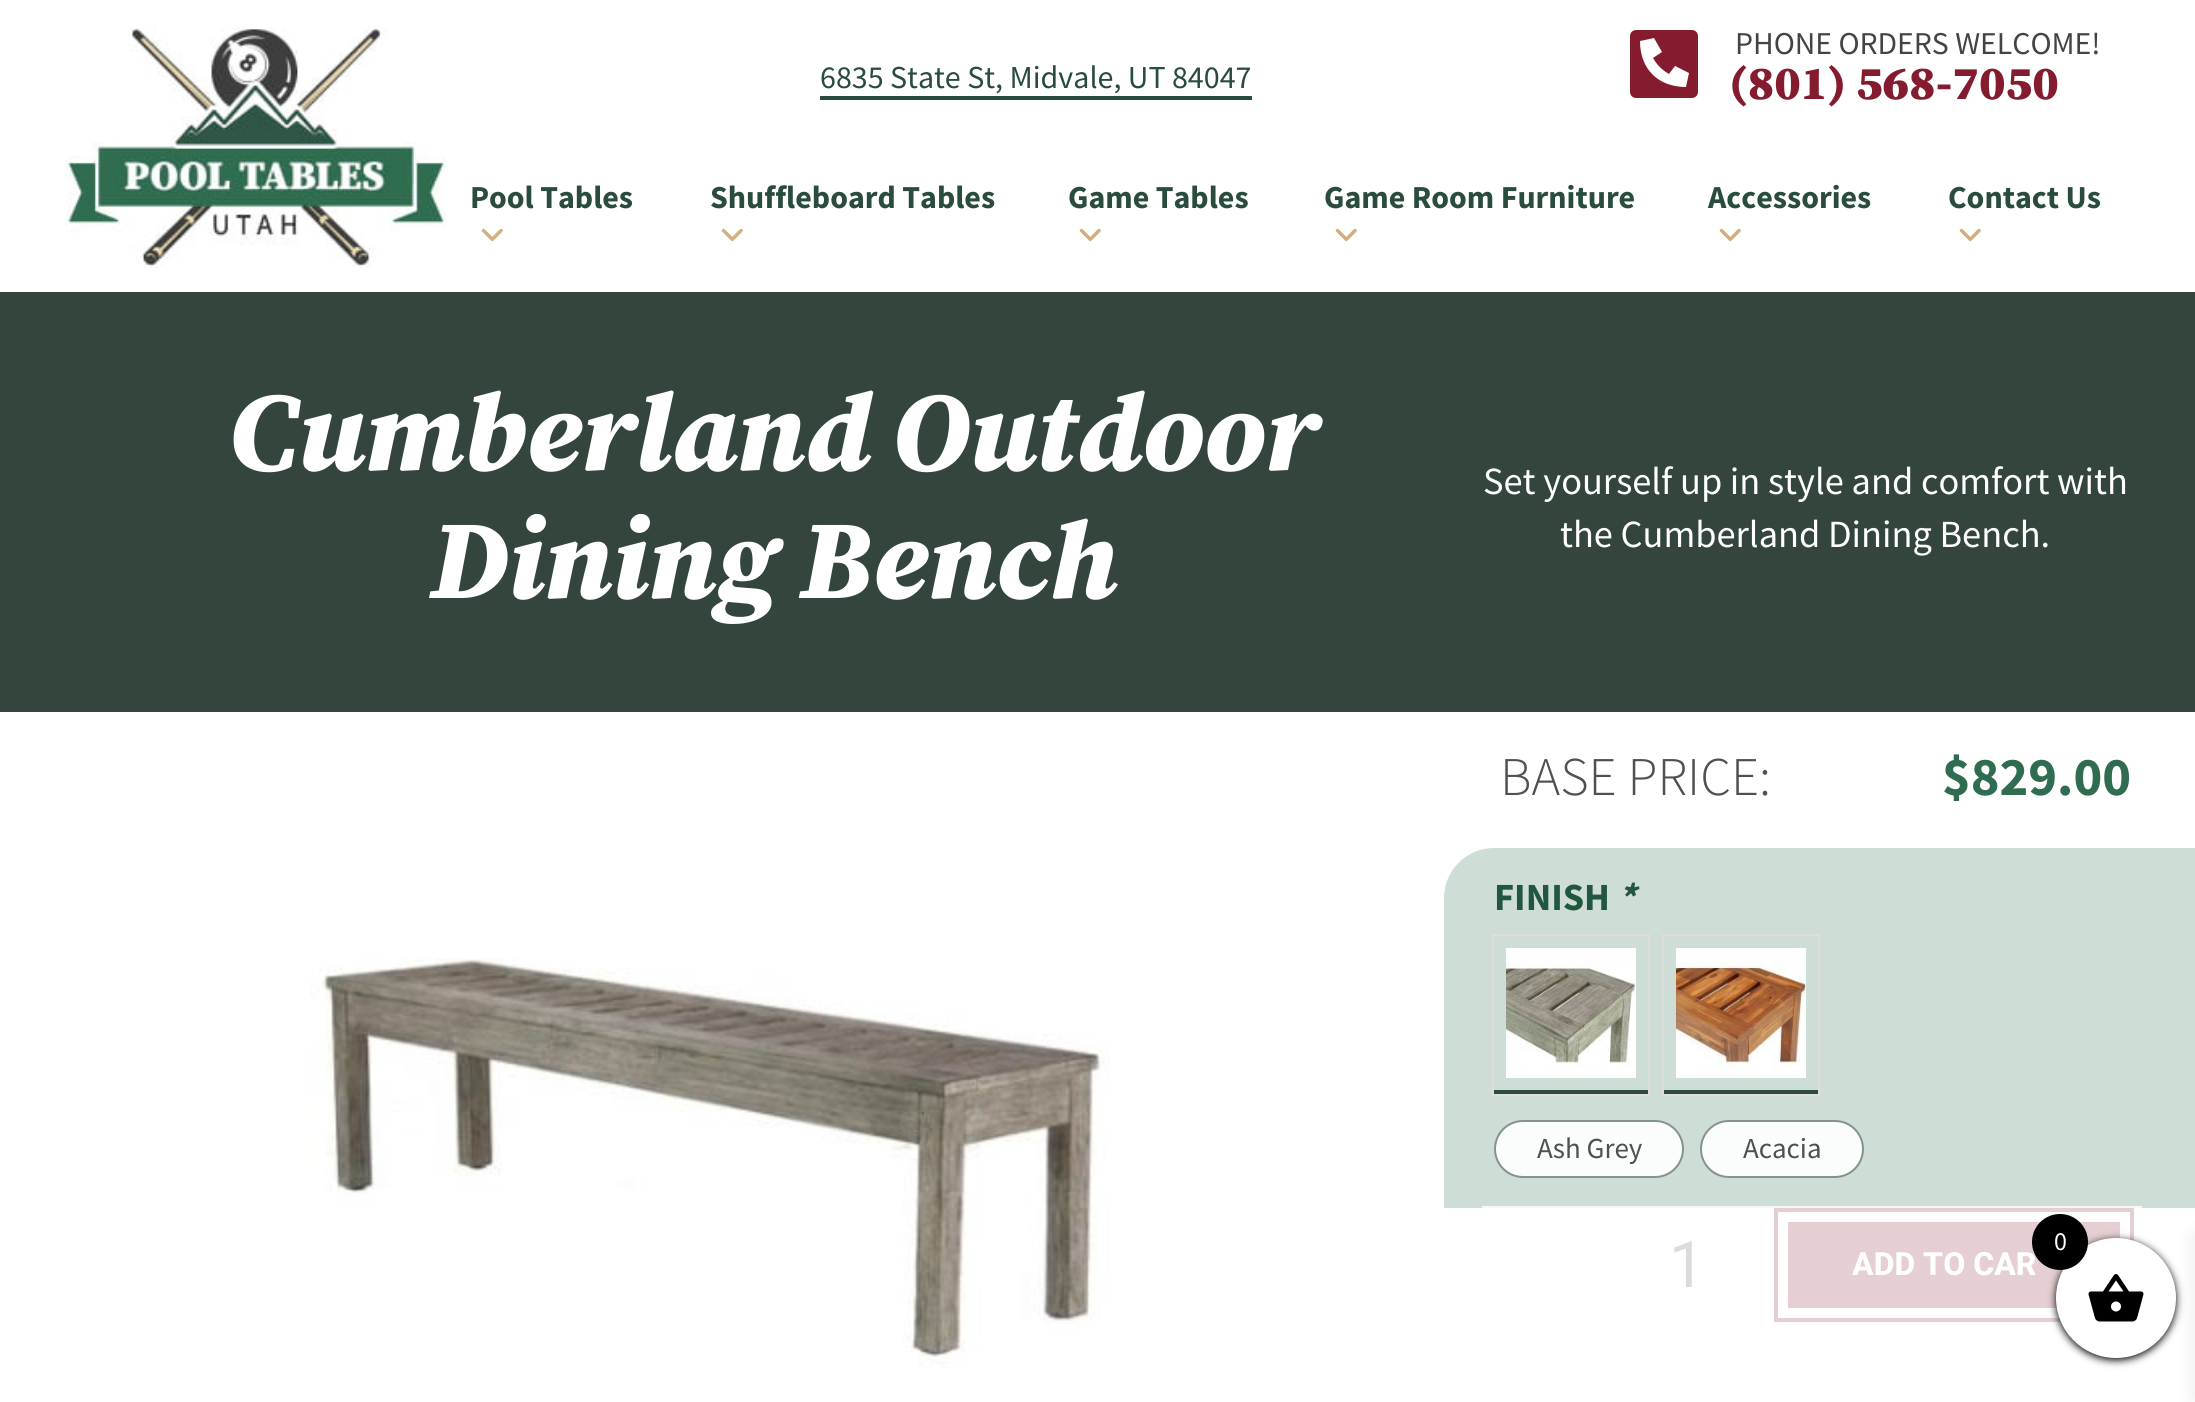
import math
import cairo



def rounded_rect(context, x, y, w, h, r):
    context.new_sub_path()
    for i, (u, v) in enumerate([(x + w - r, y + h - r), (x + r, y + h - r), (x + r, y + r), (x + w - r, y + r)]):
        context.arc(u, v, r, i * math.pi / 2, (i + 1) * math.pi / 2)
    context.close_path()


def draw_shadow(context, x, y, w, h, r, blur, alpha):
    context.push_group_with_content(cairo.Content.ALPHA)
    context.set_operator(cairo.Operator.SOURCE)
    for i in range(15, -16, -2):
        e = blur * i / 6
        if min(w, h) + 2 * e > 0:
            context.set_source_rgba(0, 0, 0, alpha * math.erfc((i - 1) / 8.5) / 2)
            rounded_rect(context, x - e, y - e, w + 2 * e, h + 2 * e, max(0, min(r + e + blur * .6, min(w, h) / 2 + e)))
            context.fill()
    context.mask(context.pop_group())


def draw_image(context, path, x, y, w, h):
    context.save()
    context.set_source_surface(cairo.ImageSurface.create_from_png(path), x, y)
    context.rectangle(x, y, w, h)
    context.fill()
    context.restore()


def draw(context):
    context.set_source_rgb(1, 1, 1)
    context.paint()
    draw_image(context, "images/1.png", 66, 26, 380, 242)
    context.set_source_rgb(41 / 255, 76 / 255, 61 / 255)
    context.rectangle(820, 96, 432, 4)
    context.fill()
    context.set_source_rgb(132 / 255, 27 / 255, 46 / 255)
    rounded_rect(context, 1630, 30, 68, 68, 6)
    context.fill()
    context.set_source_rgb(1, 1, 1)
    context.new_path()
    context.move_to(1640, 41)
    context.line_to(1654, 38)
    context.line_to(1662, 52)
    context.line_to(1653, 58)
    context.curve_to(1657, 65, 1662, 70, 1669, 74)
    context.line_to(1675, 66)
    context.line_to(1689, 73)
    context.line_to(1686, 87)
    context.curve_to(1658, 87, 1640, 69, 1640, 41)
    context.close_path()
    context.fill()
    draw_image(context, "images/2.png", 481, 228, 22, 14)
    draw_image(context, "images/2.png", 721, 228, 22, 14)
    draw_image(context, "images/2.png", 1079, 228, 22, 14)
    draw_image(context, "images/2.png", 1335, 228, 22, 14)
    draw_image(context, "images/2.png", 1719, 228, 22, 14)
    draw_image(context, "images/2.png", 1959, 228, 22, 14)
    context.set_source_rgb(51 / 255, 69 / 255, 61 / 255)
    context.rectangle(0, 292, 2195, 420)
    context.fill()
    draw_image(context, "images/3.png", 310, 958, 800, 410)
    context.set_source_rgb(207 / 255, 221 / 255, 215 / 255)
    context.new_path()
    context.move_to(1494, 848)
    context.line_to(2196, 848)
    context.line_to(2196, 1208)
    context.line_to(1444, 1208)
    context.line_to(1444, 898)
    context.curve_to(1444, 870.5, 1466.5, 848, 1494, 848)
    context.close_path()
    context.fill()
    context.set_source_rgb(245 / 255, 248 / 255, 247 / 255)
    context.rectangle(1482, 1206, 660, 2)
    context.fill()
    context.set_source_rgb(41 / 255, 76 / 255, 61 / 255)
    context.rectangle(1494, 1090, 154, 4)
    context.fill()
    draw_image(context, "images/4.png", 1506, 948, 130, 130)
    context.rectangle(1493, 935, 156, 160)
    context.set_source_rgb(221 / 255, 221 / 255, 221 / 255)
    context.stroke()
    context.set_source_rgb(41 / 255, 76 / 255, 61 / 255)
    context.rectangle(1664, 1090, 154, 4)
    context.fill()
    draw_image(context, "images/5.png", 1676, 948, 130, 130)
    context.rectangle(1663, 935, 156, 160)
    context.set_source_rgb(221 / 255, 221 / 255, 221 / 255)
    context.stroke()
    context.set_source_rgb(251 / 255, 252 / 255, 252 / 255)
    rounded_rect(context, 1495, 1121, 188, 56, 28)
    context.fill_preserve()
    context.set_source_rgb(134 / 255, 147 / 255, 141 / 255)
    context.stroke()
    context.set_source_rgb(251 / 255, 252 / 255, 252 / 255)
    rounded_rect(context, 1701, 1121, 162, 56, 28)
    context.fill_preserve()
    context.set_source_rgb(134 / 255, 147 / 255, 141 / 255)
    context.stroke()
    context.rectangle(1776, 1210, 356, 110)
    context.set_source_rgb(229 / 255, 207 / 255, 211 / 255)
    context.set_line_width(4)
    context.stroke()
    context.rectangle(1788, 1222, 332, 86)
    context.fill()
    context.set_source_rgb(0, 0, 0)
    draw_shadow(context, 2056, 1240, 120, 120, 60, 4, 1)
    draw_shadow(context, 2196, 1236, 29, 164, 0, 10, 0.1)
    context.set_source_rgb(1, 1, 1)
    context.arc(2116, 1298, 60, 0, 2 * math.pi)
    context.fill()
    draw_image(context, "images/6.png", 2088, 1274, 56, 48)
    context.select_font_face("Source Sans Pro")
    context.set_font_size(32)
    context.set_source_rgb(41 / 255, 76 / 255, 61 / 255)
    context.move_to(820, 88)
    context.show_text("6835 State St, Midvale, UT 84047")
    context.set_font_size(31.75)
    context.set_source_rgb(68 / 255, 68 / 255, 68 / 255)
    context.move_to(1735, 54)
    context.show_text("PHONE ORDERS WELCOME!")
    context.select_font_face("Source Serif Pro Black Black")
    context.set_font_size(47.5)
    context.set_source_rgb(132 / 255, 27 / 255, 46 / 255)
    context.move_to(1729, 99)
    context.show_text("(801) 568-7050")
    context.select_font_face("Source Sans Pro", cairo.FontSlant.NORMAL, cairo.FontWeight.BOLD)
    context.set_font_size(32)
    context.set_source_rgb(41 / 255, 76 / 255, 61 / 255)
    context.move_to(470, 208)
    context.show_text("Pool Tables")
    context.move_to(710, 208)
    context.show_text("Shuffleboard Tables")
    context.move_to(1068, 208)
    context.show_text("Game Tables")
    context.move_to(1324, 208)
    context.show_text("Game Room Furniture")
    context.move_to(1708, 208)
    context.show_text("Accessories")
    context.move_to(1948, 208)
    context.show_text("Contact Us")
    context.select_font_face("Source Serif Pro Black Black", cairo.FontSlant.ITALIC)
    context.set_font_size(112)
    context.set_source_rgb(1, 1, 1)
    context.move_to(229, 470)
    context.show_text("Cumberland Outdoor")
    context.move_to(430, 598)
    context.show_text("Dining Bench")
    context.select_font_face("Source Sans Pro")
    context.set_font_size(38.4)
    context.move_to(1483, 494)
    context.show_text("Set yourself up in style and comfort with")
    context.move_to(1560, 547)
    context.show_text("the Cumberland Dining Bench.")
    context.select_font_face("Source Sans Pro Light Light")
    context.set_font_size(54.5)
    context.set_source_rgb(80 / 255, 80 / 255, 80 / 255)
    context.move_to(1500, 795)
    context.show_text("BASE PRICE:")
    context.select_font_face("Source Sans Pro", cairo.FontSlant.NORMAL, cairo.FontWeight.BOLD)
    context.set_source_rgb(48 / 255, 108 / 255, 80 / 255)
    context.move_to(1942, 795)
    context.show_text("$829.00")
    context.set_font_size(38.4)
    context.set_source_rgb(33 / 255, 87 / 255, 63 / 255)
    context.move_to(1494, 910)
    context.show_text("FINISH")
    context.select_font_face("Source Sans Pro", cairo.FontSlant.ITALIC, cairo.FontWeight.BOLD)
    context.move_to(1618, 910)
    context.show_text("*")
    context.select_font_face("Source Sans Pro")
    context.set_font_size(29)
    context.set_source_rgb(80 / 255, 80 / 255, 80 / 255)
    context.move_to(1537, 1158)
    context.show_text("Ash Grey")
    context.move_to(1743, 1158)
    context.show_text("Acacia")
    context.select_font_face("Roboto")
    context.set_font_size(64)
    context.set_source_rgb(219 / 255, 219 / 255, 219 / 255)
    context.move_to(1669, 1287)
    context.show_text("1")
    context.select_font_face("Roboto ExtraBold")
    context.set_font_size(32)
    context.set_source_rgb(1, 1, 1)
    context.move_to(1852, 1275)
    context.show_text("ADD TO CAR")
    context.set_source_rgb(0, 0, 0)
    context.new_path()
    context.arc(2060, 1242, 28, 0, 2 * math.pi)
    context.fill()
    context.select_font_face("Source Sans Pro")
    context.set_font_size(26)
    context.set_source_rgb(1, 1, 1)
    context.move_to(2054, 1250)
    context.show_text("0")


surface = cairo.ImageSurface(cairo.Format.RGB24, 2195, 1402)
context = cairo.Context(surface)
options = cairo.FontOptions()
options.set_hint_metrics(cairo.HintMetrics.OFF)
options.set_hint_style(cairo.HintStyle.NONE)
context.set_font_options(options)
context.set_miter_limit(4)
draw(context)
surface.write_to_png("out.png")
